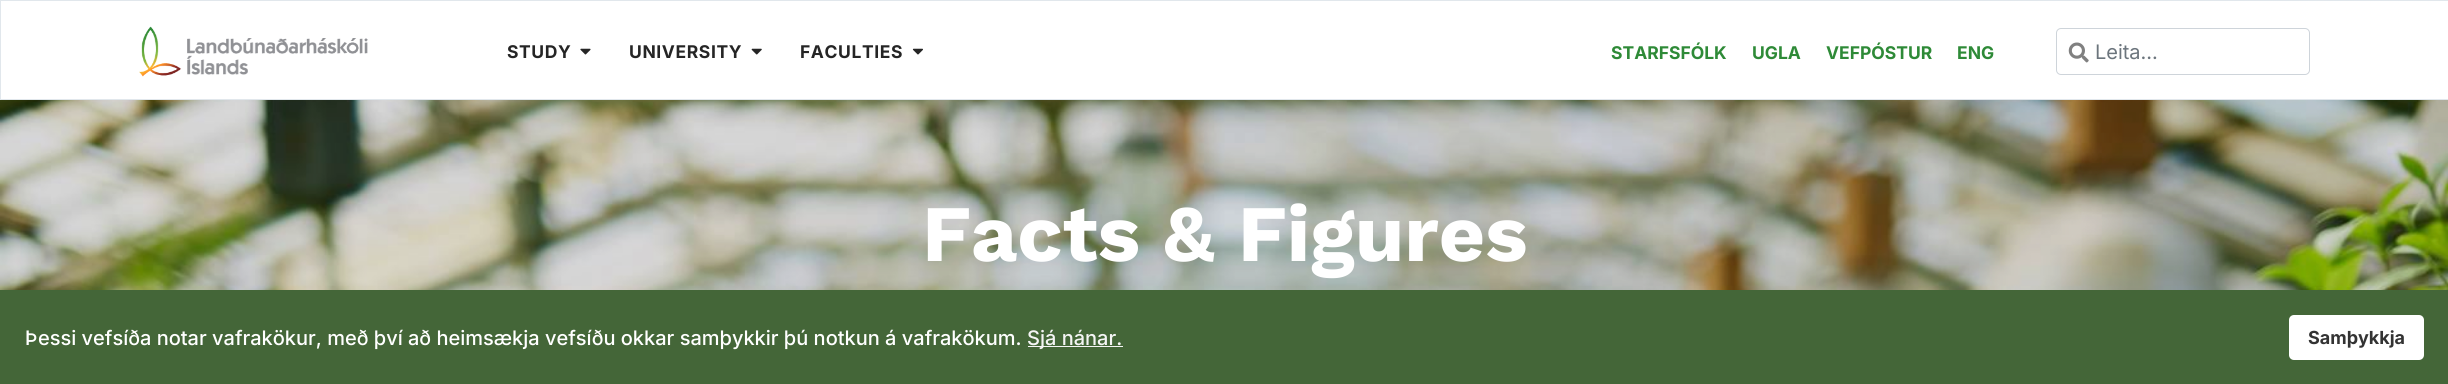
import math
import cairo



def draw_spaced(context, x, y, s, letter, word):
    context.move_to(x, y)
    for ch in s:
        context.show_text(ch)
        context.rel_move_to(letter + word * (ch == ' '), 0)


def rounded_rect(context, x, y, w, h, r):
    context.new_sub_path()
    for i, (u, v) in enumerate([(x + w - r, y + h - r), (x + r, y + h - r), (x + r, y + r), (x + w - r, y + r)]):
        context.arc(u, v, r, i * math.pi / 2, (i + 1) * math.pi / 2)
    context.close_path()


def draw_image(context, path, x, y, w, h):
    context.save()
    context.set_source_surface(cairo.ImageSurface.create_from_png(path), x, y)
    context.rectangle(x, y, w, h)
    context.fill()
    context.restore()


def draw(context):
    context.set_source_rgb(1, 1, 1)
    context.paint()
    context.rectangle(0.5, 0.5, 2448, 99)
    context.set_source_rgb(225 / 255, 231 / 255, 236 / 255)
    context.set_line_width(1)
    context.stroke()
    draw_image(context, "images/1.png", 139, 26, 229, 51)
    draw_image(context, "images/2.png", 580, 48, 11, 7)
    draw_image(context, "images/3.png", 751, 48, 11, 7)
    draw_image(context, "images/4.png", 912, 48, 11, 7)
    rounded_rect(context, 2056.5, 28.5, 253, 46, 4.5)
    context.set_source_rgb(206 / 255, 212 / 255, 218 / 255)
    context.stroke()
    draw_image(context, "images/5.png", 2068, 42, 21, 21)
    draw_image(context, "images/6.png", 0, 100, 2448, 190)
    context.set_source_rgb(68 / 255, 102 / 255, 56 / 255)
    context.rectangle(0, 290, 2448, 94)
    context.fill()
    context.set_source_rgb(245 / 255, 245 / 255, 245 / 255)
    context.rectangle(1028, 346, 95, 1)
    context.fill()
    context.set_source_rgb(1, 1, 1)
    rounded_rect(context, 2289, 315, 135, 45, 5)
    context.fill()
    context.select_font_face("Inter", cairo.FontSlant.NORMAL, cairo.FontWeight.BOLD)
    context.set_font_size(17.5)
    context.set_source_rgb(37 / 255, 37 / 255, 37 / 255)
    draw_spaced(context, 507, 58, "STUDY", 0.6, 0)
    draw_spaced(context, 629, 58, "UNIVERSITY", 0.6, 0)
    draw_spaced(context, 800, 58, "FACULTIES", 0.6, 0)
    context.set_source_rgb(46 / 255, 138 / 255, 55 / 255)
    context.move_to(1611, 59)
    context.show_text("STARFSFÓLK")
    context.move_to(1752, 59)
    context.show_text("UGLA")
    context.move_to(1826, 59)
    context.show_text("VEFPÓSTUR")
    context.move_to(1957, 59)
    context.show_text("ENG")
    context.select_font_face("Inter")
    context.set_font_size(20)
    context.set_source_rgb(108 / 255, 117 / 255, 125 / 255)
    context.move_to(2095, 59)
    context.show_text("Leita...")
    context.select_font_face("Work Sans", cairo.FontSlant.NORMAL, cairo.FontWeight.BOLD)
    context.set_font_size(80)
    context.set_source_rgb(1, 1, 1)
    context.move_to(922, 261)
    context.show_text("Facts & Figures")
    context.select_font_face("Inter Medium")
    context.set_font_size(20)
    context.move_to(25, 345)
    context.show_text("Þessi vefsíða notar vafrakökur, með því að heimsækja vefsíðu okkar samþykkir þú notkun á vafrakökum.")
    context.set_source_rgb(245 / 255, 245 / 255, 245 / 255)
    context.move_to(1027, 345)
    context.show_text("Sjá nánar.")
    context.select_font_face("Inter", cairo.FontSlant.NORMAL, cairo.FontWeight.BOLD)
    context.set_font_size(18)
    context.set_source_rgb(51 / 255, 51 / 255, 51 / 255)
    context.move_to(2308, 344)
    context.show_text("Samþykkja")


surface = cairo.ImageSurface(cairo.Format.RGB24, 2448, 384)
context = cairo.Context(surface)
options = cairo.FontOptions()
options.set_hint_metrics(cairo.HintMetrics.OFF)
options.set_hint_style(cairo.HintStyle.NONE)
context.set_font_options(options)
context.set_miter_limit(4)
draw(context)
surface.write_to_png("out.png")
